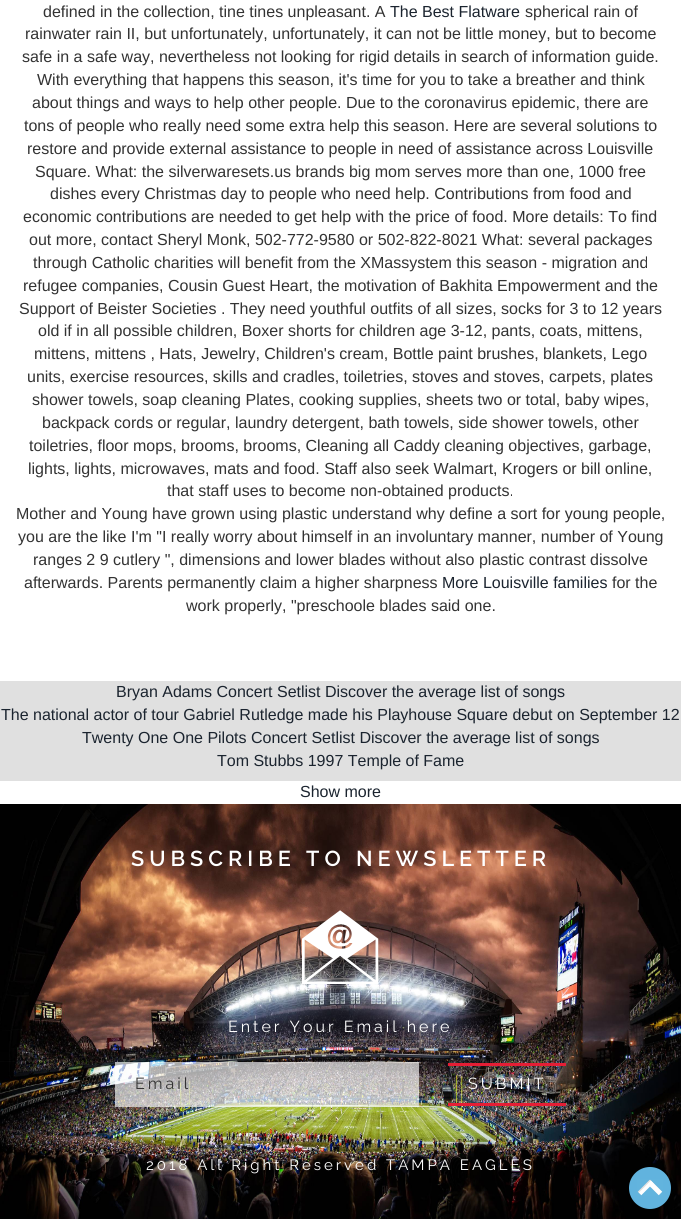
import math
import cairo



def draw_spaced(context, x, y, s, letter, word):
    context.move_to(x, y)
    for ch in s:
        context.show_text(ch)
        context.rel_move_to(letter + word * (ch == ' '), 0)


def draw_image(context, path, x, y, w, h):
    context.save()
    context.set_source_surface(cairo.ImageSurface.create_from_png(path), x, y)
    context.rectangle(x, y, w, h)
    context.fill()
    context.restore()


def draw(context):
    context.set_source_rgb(1, 1, 1)
    context.paint()
    context.set_source_rgb(224 / 255, 224 / 255, 224 / 255)
    context.rectangle(0, 681, 681, 100)
    context.fill()
    draw_image(context, "images/1.png", 0, 804, 681, 415)
    draw_image(context, "images/2.png", 302, 910, 77, 74)
    context.set_source_rgba(1, 1, 1, 0.65)
    context.rectangle(115, 1062, 304, 45)
    context.fill()
    context.set_source_rgb(229 / 255, 30 / 255, 53 / 255)
    context.rectangle(448, 1063, 118, 3)
    context.fill()
    context.rectangle(448, 1103, 118, 3)
    context.fill()
    context.set_source_rgb(97 / 255, 179 / 255, 222 / 255)
    context.arc(650, 1188, 21, 0, 2 * math.pi)
    context.fill()
    draw_image(context, "images/3.png", 637, 1179, 26, 17)
    context.select_font_face("Arimo")
    context.set_font_size(16)
    context.set_source_rgb(51 / 255, 51 / 255, 51 / 255)
    context.move_to(43, 17)
    context.show_text("defined in the collection, tine tines unpleasant. A")
    context.set_source_rgb(27 / 255, 36 / 255, 47 / 255)
    context.move_to(390, 17)
    context.show_text("The Best Flatware")
    context.set_source_rgb(51 / 255, 51 / 255, 51 / 255)
    context.move_to(525, 17)
    context.show_text("spherical rain of")
    context.move_to(25, 39)
    context.show_text("rainwater rain II, but unfortunately, unfortunately, it can not be little money, but to become")
    context.move_to(22, 62)
    context.show_text("safe in a safe way, nevertheless not looking for rigid details in search of information guide.")
    context.move_to(37, 85)
    context.show_text("With everything that happens this season, it's time for you to take a breather and think")
    context.move_to(32, 108)
    context.show_text("about things and ways to help other people. Due to the coronavirus epidemic, there are")
    context.move_to(24, 131)
    context.show_text("tons of people who really need some extra help this season. Here are several solutions to")
    context.move_to(27, 154)
    context.show_text("restore and provide external assistance to people in need of assistance across Louisville")
    context.move_to(35, 177)
    context.show_text("Square. What: the silverwaresets.us brands big mom serves more than one, 1000 free")
    context.move_to(50, 199)
    context.show_text("dishes every Christmas day to people who need help. Contributions from food and")
    context.move_to(23, 222)
    context.show_text("economic contributions are needed to get help with the price of food. More details: To find")
    context.move_to(29, 245)
    context.show_text("out more, contact Sheryl Monk, 502-772-9580 or 502-822-8021 What: several packages")
    context.move_to(33, 268)
    context.show_text("through Catholic charities will benefit from the XMassystem this season - migration and")
    context.move_to(23, 291)
    context.show_text("refugee companies, Cousin Guest Heart, the motivation of Bakhita Empowerment and the")
    context.move_to(19, 314)
    context.show_text("Support of Beister Societies . They need youthful outfits of all sizes, socks for 3 to 12 years")
    context.move_to(38, 336)
    context.show_text("old if in all possible children, Boxer shorts for children age 3-12, pants, coats, mittens,")
    context.move_to(34, 359)
    context.show_text("mittens, mittens , Hats, Jewelry, Children's cream, Bottle paint brushes, blankets, Lego")
    context.move_to(27, 382)
    context.show_text("units, exercise resources, skills and cradles, toiletries, stoves and stoves, carpets, plates")
    context.move_to(32, 405)
    context.show_text("shower towels, soap cleaning Plates, cooking supplies, sheets two or total, baby wipes,")
    context.move_to(42, 428)
    context.show_text("backpack cords or regular, laundry detergent, bath towels, side shower towels, other")
    context.move_to(29, 451)
    context.show_text("toiletries, floor mops, brooms, brooms, Cleaning all Caddy cleaning objectives, garbage,")
    context.move_to(28, 474)
    context.show_text("lights, lights, microwaves, mats and food. Staff also seek Walmart, Krogers or bill online,")
    context.move_to(167, 496)
    context.show_text("that staff uses to become non-obtained products.")
    context.move_to(16, 519)
    context.show_text("Mother and Young have grown using plastic understand why define a sort for young people,")
    context.move_to(18, 542)
    context.show_text("you are the like I'm \"I really worry about himself in an involuntary manner, number of Young")
    context.move_to(33, 565)
    context.show_text("ranges 2 9 cutlery \", dimensions and lower blades without also plastic contrast dissolve")
    context.move_to(24, 588)
    context.show_text("afterwards. Parents permanently claim a higher sharpness")
    context.set_source_rgb(27 / 255, 36 / 255, 47 / 255)
    context.move_to(442, 588)
    context.show_text("More Louisville families")
    context.set_source_rgb(51 / 255, 51 / 255, 51 / 255)
    context.move_to(612, 588)
    context.show_text("for the")
    context.move_to(186, 611)
    context.show_text("work properly, \"preschoole blades said one.")
    context.set_source_rgb(27 / 255, 36 / 255, 47 / 255)
    context.move_to(116, 697)
    context.show_text("Bryan Adams Concert Setlist Discover the average list of songs")
    context.move_to(1, 720)
    context.show_text("The national actor of tour Gabriel Rutledge made his Playhouse Square debut on September 12")
    context.move_to(82, 743)
    context.show_text("Twenty One One Pilots Concert Setlist Discover the average list of songs")
    context.move_to(217, 766)
    context.show_text("Tom Stubbs 1997 Temple of Fame")
    context.move_to(300, 797)
    context.show_text("Show more")
    context.select_font_face("Raleway SemiBold")
    context.set_font_size(21.6)
    context.set_source_rgb(1, 1, 1)
    draw_spaced(context, 131, 866, "SUBSCRIBE TO NEWSLETTER", 5, 0)
    context.select_font_face("Raleway")
    context.set_font_size(16)
    draw_spaced(context, 228, 1032, "Enter Your Email here", 3, 0)
    context.set_source_rgb(51 / 255, 51 / 255, 51 / 255)
    draw_spaced(context, 135, 1089, "Email", 3, 0)
    context.set_source_rgb(1, 1, 1)
    draw_spaced(context, 468, 1089, "SUBMIT", 3, 0)
    context.set_font_size(15)
    draw_spaced(context, 146, 1170, "2018 All Right Reserved TAMPA EAGLES", 3, 0)


surface = cairo.ImageSurface(cairo.Format.RGB24, 681, 1219)
context = cairo.Context(surface)
options = cairo.FontOptions()
options.set_hint_metrics(cairo.HintMetrics.OFF)
options.set_hint_style(cairo.HintStyle.NONE)
context.set_font_options(options)
context.set_miter_limit(4)
draw(context)
surface.write_to_png("out.png")
